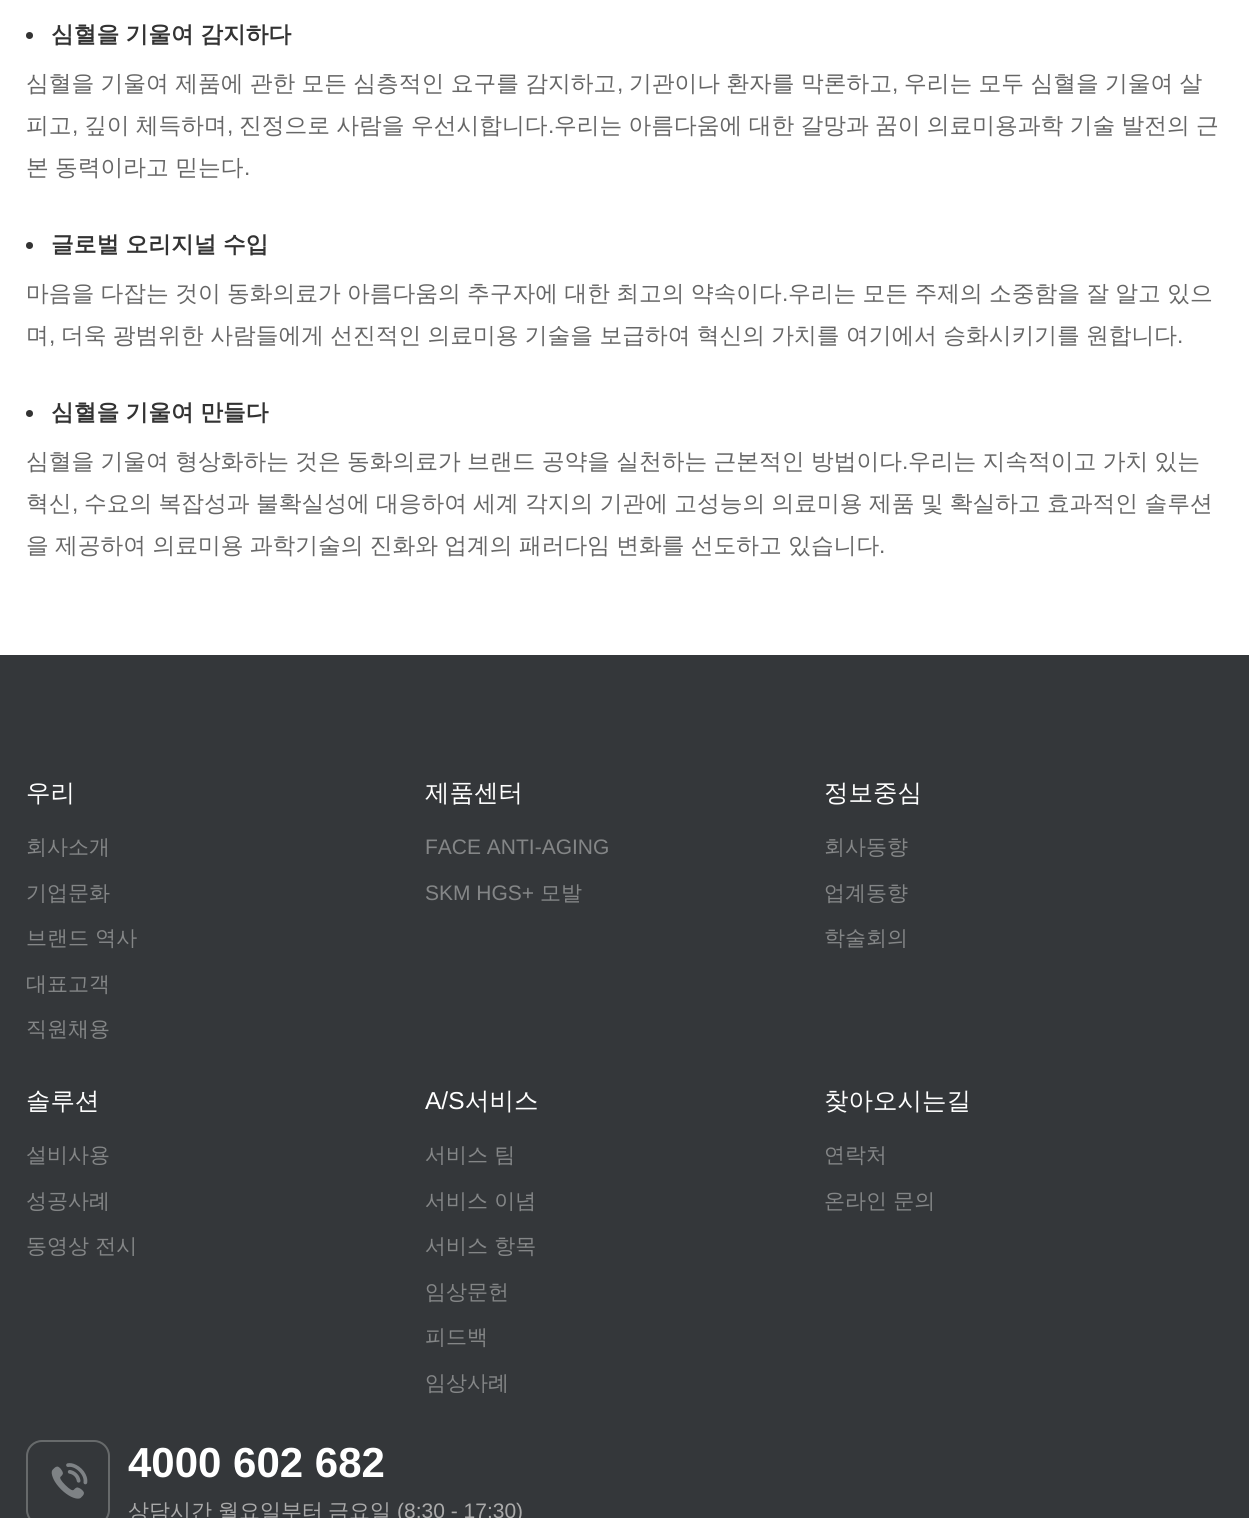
import math
import cairo



def draw_spaced(context, x, y, s, letter, word):
    context.move_to(x, y)
    for ch in s:
        context.show_text(ch)
        context.rel_move_to(letter + word * (ch == ' '), 0)


def rounded_rect(context, x, y, w, h, r):
    context.new_sub_path()
    for i, (u, v) in enumerate([(x + w - r, y + h - r), (x + r, y + h - r), (x + r, y + r), (x + w - r, y + r)]):
        context.arc(u, v, r, i * math.pi / 2, (i + 1) * math.pi / 2)
    context.close_path()


def draw_image(context, path, x, y, w, h):
    context.save()
    context.set_source_surface(cairo.ImageSurface.create_from_png(path), x, y)
    context.rectangle(x, y, w, h)
    context.fill()
    context.restore()


def draw(context):
    context.set_source_rgb(1, 1, 1)
    context.paint()
    context.set_source_rgb(51 / 255, 51 / 255, 51 / 255)
    context.arc(29.5, 35.5, 3.5, 0, 2 * math.pi)
    context.fill()
    context.arc(29.5, 245.5, 3.5, 0, 2 * math.pi)
    context.fill()
    context.arc(29.5, 413.5, 3.5, 0, 2 * math.pi)
    context.fill()
    context.set_source_rgb(52 / 255, 55 / 255, 58 / 255)
    context.rectangle(0, 655, 1249, 863)
    context.fill()
    rounded_rect(context, 27, 1441, 82, 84, 15)
    context.set_source_rgb(103 / 255, 106 / 255, 107 / 255)
    context.stroke()
    draw_image(context, "images/1.png", 51, 1463, 37, 36)
    context.select_font_face("WenQuanYi Zen Hei", cairo.FontSlant.NORMAL, cairo.FontWeight.BOLD)
    context.set_font_size(22.75)
    context.set_source_rgb(51 / 255, 51 / 255, 51 / 255)
    draw_spaced(context, 51, 42, "심혈을 기울여 감지하다", 0, -0.5)
    context.select_font_face("WenQuanYi Zen Hei Medium")
    context.set_source_rgb(102 / 255, 102 / 255, 102 / 255)
    draw_spaced(context, 26, 91, "심혈을 기울여 제품에 관한 모든 심층적인 요구를 감지하고", 0, -0.5)
    context.select_font_face("Liberation Sans")
    context.move_to(617, 91)
    context.show_text(",")
    context.select_font_face("WenQuanYi Zen Hei Medium")
    draw_spaced(context, 629, 91, "기관이나 환자를 막론하고", 0, -0.5)
    context.select_font_face("Liberation Sans")
    context.move_to(892, 91)
    context.show_text(",")
    context.select_font_face("WenQuanYi Zen Hei Medium")
    draw_spaced(context, 904, 91, "우리는 모두 심혈을 기울여 살", 0, -0.5)
    context.move_to(26, 133)
    context.show_text("피고")
    context.select_font_face("Liberation Sans")
    context.move_to(72, 133)
    context.show_text(",")
    context.select_font_face("WenQuanYi Zen Hei Medium")
    draw_spaced(context, 84, 133, "깊이 체득하며", 0, -0.5)
    context.select_font_face("Liberation Sans")
    context.move_to(227, 133)
    context.show_text(",")
    context.select_font_face("WenQuanYi Zen Hei Medium")
    draw_spaced(context, 239, 133, "진정으로 사람을 우선시합니다", 0, -0.5)
    context.select_font_face("Liberation Sans")
    context.move_to(548, 133)
    context.show_text(".")
    context.select_font_face("WenQuanYi Zen Hei Medium")
    draw_spaced(context, 554, 133, "우리는 아름다움에 대한 갈망과 꿈이 의료미용과학 기술 발전의 근", 0, -0.5)
    draw_spaced(context, 26, 175, "본 동력이라고 믿는다", 0, -0.5)
    context.select_font_face("Liberation Sans")
    context.move_to(244, 175)
    context.show_text(".")
    context.select_font_face("WenQuanYi Zen Hei", cairo.FontSlant.NORMAL, cairo.FontWeight.BOLD)
    context.set_source_rgb(51 / 255, 51 / 255, 51 / 255)
    draw_spaced(context, 51, 252, "글로벌 오리지널 수입", 0, -0.5)
    context.select_font_face("WenQuanYi Zen Hei Medium")
    context.set_source_rgb(102 / 255, 102 / 255, 102 / 255)
    draw_spaced(context, 26, 301, "마음을 다잡는 것이 동화의료가 아름다움의 추구자에 대한 최고의 약속이다", 0, -0.5)
    context.select_font_face("Liberation Sans")
    context.move_to(782, 301)
    context.show_text(".")
    context.select_font_face("WenQuanYi Zen Hei Medium")
    draw_spaced(context, 788, 301, "우리는 모든 주제의 소중함을 잘 알고 있으", 0, -0.5)
    context.move_to(26, 343)
    context.show_text("며")
    context.select_font_face("Liberation Sans")
    context.move_to(49, 343)
    context.show_text(",")
    context.select_font_face("WenQuanYi Zen Hei Medium")
    draw_spaced(context, 61, 343, "더욱 광범위한 사람들에게 선진적인 의료미용 기술을 보급하여 혁신의 가치를 여기에서 승화시키기를 원합니다", 0, -0.5)
    context.select_font_face("Liberation Sans")
    context.move_to(1177, 343)
    context.show_text(".")
    context.select_font_face("WenQuanYi Zen Hei", cairo.FontSlant.NORMAL, cairo.FontWeight.BOLD)
    context.set_source_rgb(51 / 255, 51 / 255, 51 / 255)
    draw_spaced(context, 51, 420, "심혈을 기울여 만들다", 0, -0.5)
    context.select_font_face("WenQuanYi Zen Hei Medium")
    context.set_source_rgb(102 / 255, 102 / 255, 102 / 255)
    draw_spaced(context, 26, 469, "심혈을 기울여 형상화하는 것은 동화의료가 브랜드 공약을 실천하는 근본적인 방법이다", 0, -0.5)
    context.select_font_face("Liberation Sans")
    context.move_to(902, 469)
    context.show_text(".")
    context.select_font_face("WenQuanYi Zen Hei Medium")
    draw_spaced(context, 908, 469, "우리는 지속적이고 가치 있는", 0, -0.5)
    context.move_to(26, 511)
    context.show_text("혁신")
    context.select_font_face("Liberation Sans")
    context.move_to(72, 511)
    context.show_text(",")
    context.select_font_face("WenQuanYi Zen Hei Medium")
    draw_spaced(context, 84, 511, "수요의 복잡성과 불확실성에 대응하여 세계 각지의 기관에 고성능의 의료미용 제품 및 확실하고 효과적인 솔루션", 0, -0.5)
    draw_spaced(context, 26, 553, "을 제공하여 의료미용 과학기술의 진화와 업계의 패러다임 변화를 선도하고 있습니다", 0, -0.5)
    context.select_font_face("Liberation Sans")
    context.move_to(879, 553)
    context.show_text(".")
    context.select_font_face("WenQuanYi Zen Hei Medium")
    context.set_font_size(24.5)
    context.set_source_rgb(1, 1, 1)
    context.move_to(26, 801)
    context.show_text("우리")
    context.set_font_size(21)
    context.set_source_rgb(132 / 255, 134 / 255, 135 / 255)
    context.move_to(26, 854)
    context.show_text("회사소개")
    context.move_to(26, 900)
    context.show_text("기업문화")
    context.move_to(26, 945)
    context.show_text("브랜드 역사")
    context.move_to(26, 991)
    context.show_text("대표고객")
    context.move_to(26, 1036)
    context.show_text("직원채용")
    context.set_font_size(24.5)
    context.set_source_rgb(1, 1, 1)
    context.move_to(425, 801)
    context.show_text("제품센터")
    context.select_font_face("Liberation Sans")
    context.set_font_size(21)
    context.set_source_rgb(132 / 255, 134 / 255, 135 / 255)
    context.move_to(425, 854)
    context.show_text("FACE ANTI-AGING")
    context.move_to(425, 900)
    context.show_text("SKM HGS+")
    context.select_font_face("WenQuanYi Zen Hei Medium")
    context.move_to(540, 900)
    context.show_text("모발")
    context.set_font_size(24.5)
    context.set_source_rgb(1, 1, 1)
    context.move_to(824, 801)
    context.show_text("정보중심")
    context.set_font_size(21)
    context.set_source_rgb(132 / 255, 134 / 255, 135 / 255)
    context.move_to(824, 854)
    context.show_text("회사동향")
    context.move_to(824, 900)
    context.show_text("업계동향")
    context.move_to(824, 945)
    context.show_text("학술회의")
    context.set_font_size(24.5)
    context.set_source_rgb(1, 1, 1)
    context.move_to(26, 1109)
    context.show_text("솔루션")
    context.set_font_size(21)
    context.set_source_rgb(132 / 255, 134 / 255, 135 / 255)
    context.move_to(26, 1162)
    context.show_text("설비사용")
    context.move_to(26, 1208)
    context.show_text("성공사례")
    context.move_to(26, 1253)
    context.show_text("동영상 전시")
    context.select_font_face("Liberation Sans")
    context.set_font_size(24.5)
    context.set_source_rgb(1, 1, 1)
    context.move_to(425, 1109)
    context.show_text("A/S")
    context.select_font_face("WenQuanYi Zen Hei Medium")
    context.move_to(465, 1109)
    context.show_text("서비스")
    context.set_font_size(21)
    context.set_source_rgb(132 / 255, 134 / 255, 135 / 255)
    context.move_to(425, 1162)
    context.show_text("서비스 팀")
    context.move_to(425, 1208)
    context.show_text("서비스 이념")
    context.move_to(425, 1253)
    context.show_text("서비스 항목")
    context.move_to(425, 1299)
    context.show_text("임상문헌")
    context.move_to(425, 1344)
    context.show_text("피드백")
    context.move_to(425, 1390)
    context.show_text("임상사례")
    context.set_font_size(24.5)
    context.set_source_rgb(1, 1, 1)
    context.move_to(824, 1109)
    context.show_text("찾아오시는길")
    context.set_font_size(21)
    context.set_source_rgb(132 / 255, 134 / 255, 135 / 255)
    context.move_to(824, 1162)
    context.show_text("연락처")
    context.move_to(824, 1208)
    context.show_text("온라인 문의")
    context.select_font_face("Liberation Sans", cairo.FontSlant.NORMAL, cairo.FontWeight.BOLD)
    context.set_font_size(42)
    context.set_source_rgb(1, 1, 1)
    context.move_to(128, 1477)
    context.show_text("4000 602 682")
    context.select_font_face("WenQuanYi Zen Hei Medium")
    context.set_font_size(21)
    context.set_source_rgb(170 / 255, 170 / 255, 170 / 255)
    context.move_to(128, 1518)
    context.show_text("상담시간")
    context.move_to(218, 1518)
    context.show_text("월요일부터")
    context.move_to(328, 1518)
    context.show_text("금요일")
    context.select_font_face("Liberation Sans")
    context.move_to(397, 1518)
    context.show_text("(8:30 - 17:30)")


surface = cairo.ImageSurface(cairo.Format.RGB24, 1249, 1518)
context = cairo.Context(surface)
options = cairo.FontOptions()
options.set_hint_metrics(cairo.HintMetrics.OFF)
options.set_hint_style(cairo.HintStyle.NONE)
context.set_font_options(options)
context.set_miter_limit(4)
draw(context)
surface.write_to_png("out.png")
